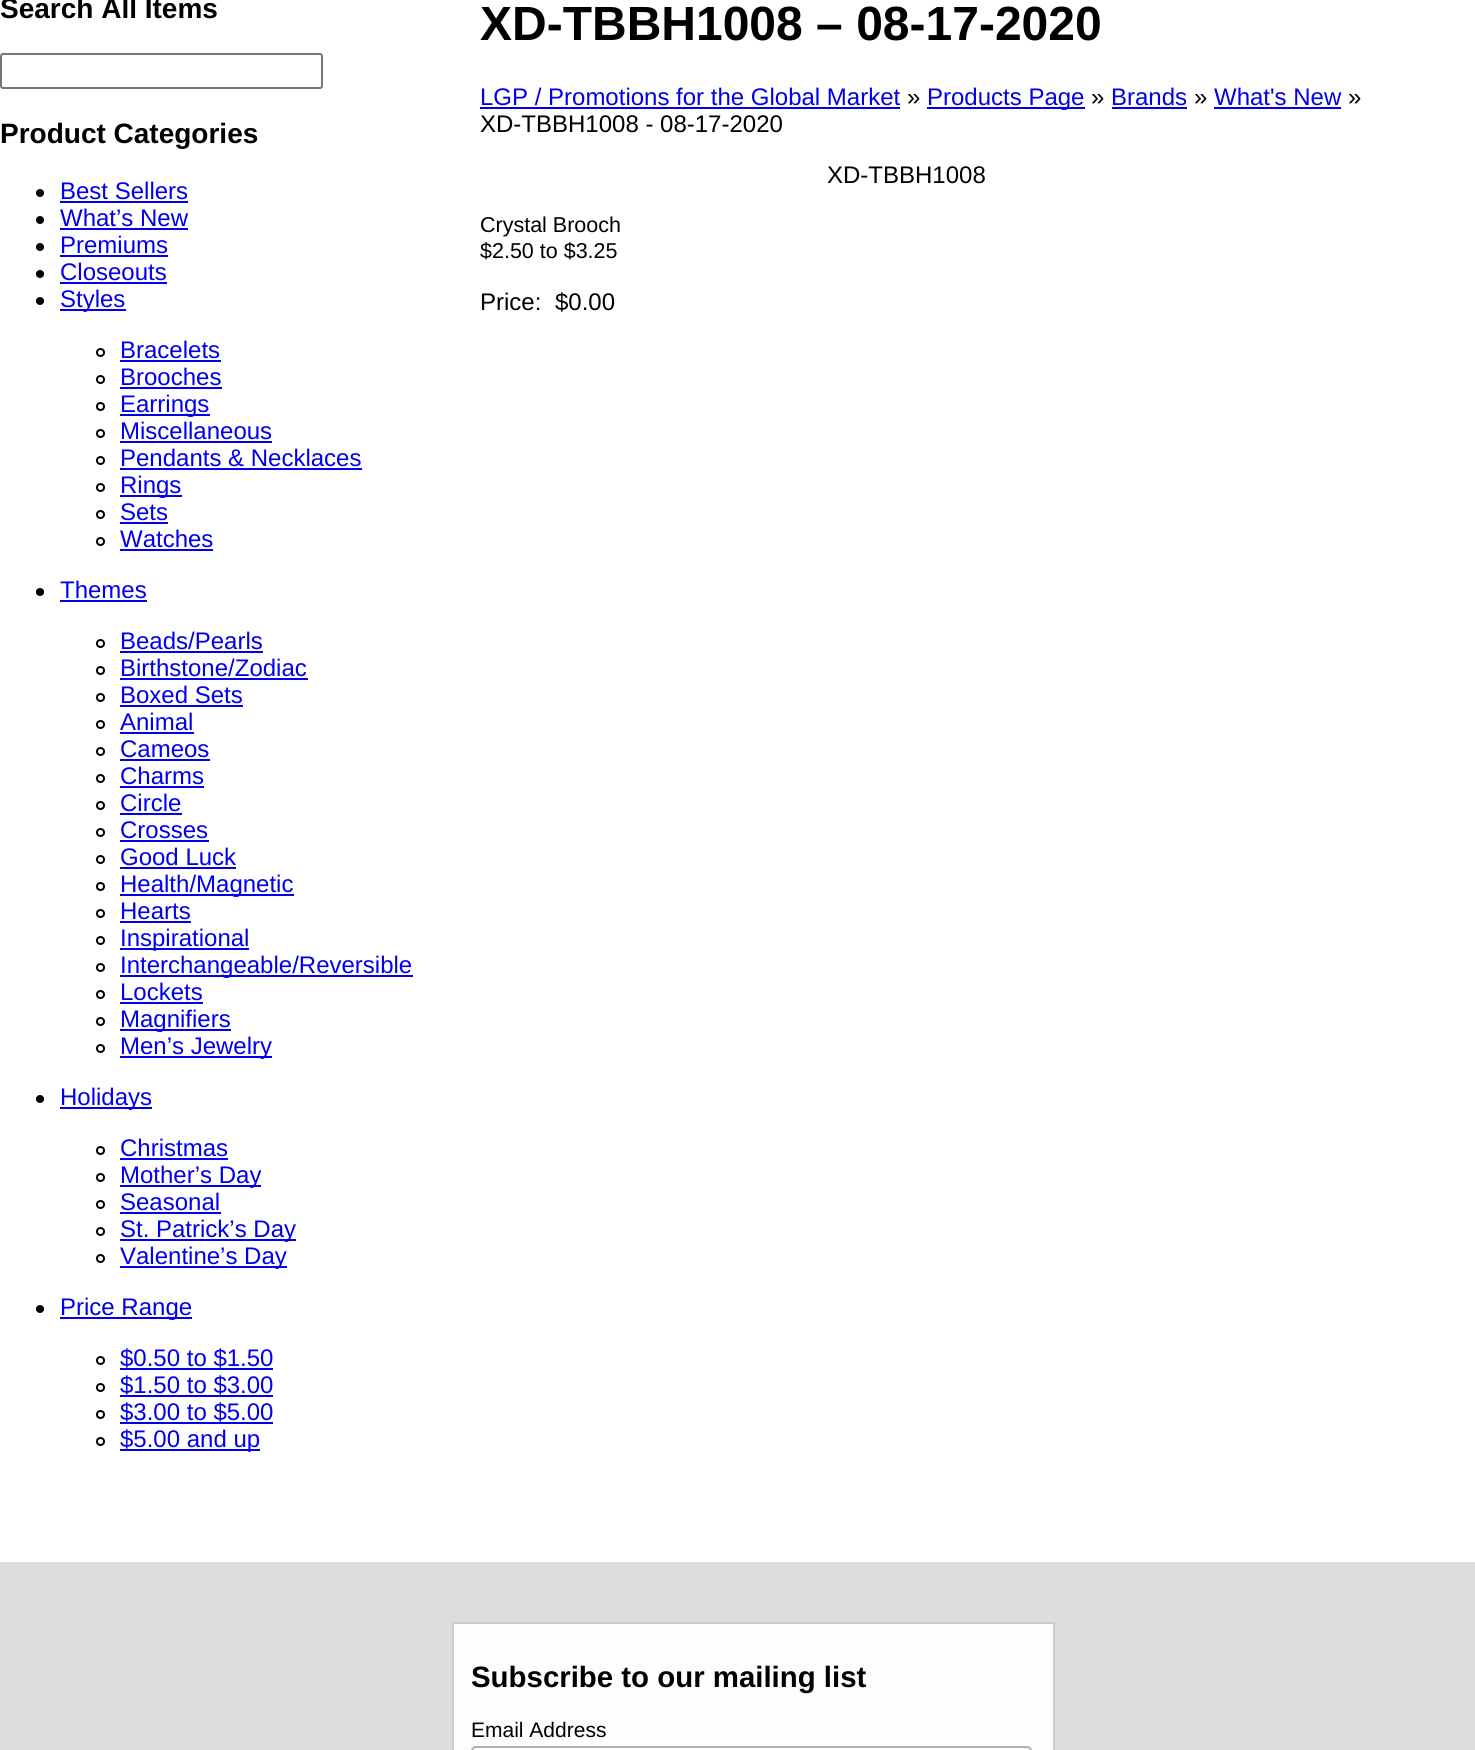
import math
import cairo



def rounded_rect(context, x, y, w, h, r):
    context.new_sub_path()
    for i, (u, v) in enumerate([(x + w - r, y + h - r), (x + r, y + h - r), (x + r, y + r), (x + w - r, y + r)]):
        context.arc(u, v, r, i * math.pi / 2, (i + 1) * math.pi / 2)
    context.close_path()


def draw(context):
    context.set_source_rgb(1, 1, 1)
    context.paint()
    rounded_rect(context, 1, 54, 321, 34, 2)
    context.set_source_rgb(118 / 255, 118 / 255, 118 / 255)
    context.stroke()
    context.set_source_rgb(0, 0, 0)
    context.arc(40, 193, 4, 0, 2 * math.pi)
    context.fill()
    context.set_source_rgb(0, 0, 238 / 255)
    context.rectangle(60, 201, 128, 2)
    context.fill()
    context.set_source_rgb(0, 0, 0)
    context.arc(40, 220, 4, 0, 2 * math.pi)
    context.fill()
    context.set_source_rgb(0, 0, 238 / 255)
    context.rectangle(60, 228, 128, 2)
    context.fill()
    context.set_source_rgb(0, 0, 0)
    context.arc(40, 247, 4, 0, 2 * math.pi)
    context.fill()
    context.set_source_rgb(0, 0, 238 / 255)
    context.rectangle(60, 255, 108, 2)
    context.fill()
    context.set_source_rgb(0, 0, 0)
    context.arc(40, 274, 4, 0, 2 * math.pi)
    context.fill()
    context.set_source_rgb(0, 0, 238 / 255)
    context.rectangle(60, 282, 107, 2)
    context.fill()
    context.set_source_rgb(0, 0, 0)
    context.arc(40, 301, 4, 0, 2 * math.pi)
    context.fill()
    context.set_source_rgb(0, 0, 238 / 255)
    context.rectangle(60, 309, 66, 2)
    context.fill()
    context.arc(100.5, 352.5, 3.5, 0, 2 * math.pi)
    context.set_source_rgb(0, 0, 0)
    context.stroke()
    context.set_source_rgb(0, 0, 238 / 255)
    context.rectangle(120, 360, 101, 2)
    context.fill()
    context.arc(100.5, 379.5, 3.5, 0, 2 * math.pi)
    context.set_source_rgb(0, 0, 0)
    context.stroke()
    context.set_source_rgb(0, 0, 238 / 255)
    context.rectangle(120, 387, 102, 2)
    context.fill()
    context.arc(100.5, 406.5, 3.5, 0, 2 * math.pi)
    context.set_source_rgb(0, 0, 0)
    context.stroke()
    context.set_source_rgb(0, 0, 238 / 255)
    context.rectangle(120, 414, 90, 2)
    context.fill()
    context.arc(100.5, 433.5, 3.5, 0, 2 * math.pi)
    context.set_source_rgb(0, 0, 0)
    context.stroke()
    context.set_source_rgb(0, 0, 238 / 255)
    context.rectangle(120, 441, 152, 2)
    context.fill()
    context.arc(100.5, 460.5, 3.5, 0, 2 * math.pi)
    context.set_source_rgb(0, 0, 0)
    context.stroke()
    context.set_source_rgb(0, 0, 238 / 255)
    context.rectangle(120, 468, 242, 2)
    context.fill()
    context.arc(100.5, 487.5, 3.5, 0, 2 * math.pi)
    context.set_source_rgb(0, 0, 0)
    context.stroke()
    context.set_source_rgb(0, 0, 238 / 255)
    context.rectangle(120, 495, 62, 2)
    context.fill()
    context.arc(100.5, 514.5, 3.5, 0, 2 * math.pi)
    context.set_source_rgb(0, 0, 0)
    context.stroke()
    context.set_source_rgb(0, 0, 238 / 255)
    context.rectangle(120, 522, 48, 2)
    context.fill()
    context.arc(100.5, 541.5, 3.5, 0, 2 * math.pi)
    context.set_source_rgb(0, 0, 0)
    context.stroke()
    context.set_source_rgb(0, 0, 238 / 255)
    context.rectangle(120, 549, 93, 2)
    context.fill()
    context.set_source_rgb(0, 0, 0)
    context.arc(40, 592, 4, 0, 2 * math.pi)
    context.fill()
    context.set_source_rgb(0, 0, 238 / 255)
    context.rectangle(60, 600, 87, 2)
    context.fill()
    context.arc(100.5, 643.5, 3.5, 0, 2 * math.pi)
    context.set_source_rgb(0, 0, 0)
    context.stroke()
    context.set_source_rgb(0, 0, 238 / 255)
    context.rectangle(120, 651, 143, 2)
    context.fill()
    context.arc(100.5, 670.5, 3.5, 0, 2 * math.pi)
    context.set_source_rgb(0, 0, 0)
    context.stroke()
    context.set_source_rgb(0, 0, 238 / 255)
    context.rectangle(120, 678, 188, 2)
    context.fill()
    context.arc(100.5, 697.5, 3.5, 0, 2 * math.pi)
    context.set_source_rgb(0, 0, 0)
    context.stroke()
    context.set_source_rgb(0, 0, 238 / 255)
    context.rectangle(120, 705, 123, 2)
    context.fill()
    context.arc(100.5, 724.5, 3.5, 0, 2 * math.pi)
    context.set_source_rgb(0, 0, 0)
    context.stroke()
    context.set_source_rgb(0, 0, 238 / 255)
    context.rectangle(120, 732, 74, 2)
    context.fill()
    context.arc(100.5, 751.5, 3.5, 0, 2 * math.pi)
    context.set_source_rgb(0, 0, 0)
    context.stroke()
    context.set_source_rgb(0, 0, 238 / 255)
    context.rectangle(120, 759, 90, 2)
    context.fill()
    context.arc(100.5, 778.5, 3.5, 0, 2 * math.pi)
    context.set_source_rgb(0, 0, 0)
    context.stroke()
    context.set_source_rgb(0, 0, 238 / 255)
    context.rectangle(120, 786, 84, 2)
    context.fill()
    context.arc(100.5, 805.5, 3.5, 0, 2 * math.pi)
    context.set_source_rgb(0, 0, 0)
    context.stroke()
    context.set_source_rgb(0, 0, 238 / 255)
    context.rectangle(120, 813, 62, 2)
    context.fill()
    context.arc(100.5, 832.5, 3.5, 0, 2 * math.pi)
    context.set_source_rgb(0, 0, 0)
    context.stroke()
    context.set_source_rgb(0, 0, 238 / 255)
    context.rectangle(120, 840, 89, 2)
    context.fill()
    context.arc(100.5, 859.5, 3.5, 0, 2 * math.pi)
    context.set_source_rgb(0, 0, 0)
    context.stroke()
    context.set_source_rgb(0, 0, 238 / 255)
    context.rectangle(120, 867, 116, 2)
    context.fill()
    context.arc(100.5, 886.5, 3.5, 0, 2 * math.pi)
    context.set_source_rgb(0, 0, 0)
    context.stroke()
    context.set_source_rgb(0, 0, 238 / 255)
    context.rectangle(120, 894, 174, 2)
    context.fill()
    context.arc(100.5, 913.5, 3.5, 0, 2 * math.pi)
    context.set_source_rgb(0, 0, 0)
    context.stroke()
    context.set_source_rgb(0, 0, 238 / 255)
    context.rectangle(120, 921, 71, 2)
    context.fill()
    context.arc(100.5, 940.5, 3.5, 0, 2 * math.pi)
    context.set_source_rgb(0, 0, 0)
    context.stroke()
    context.set_source_rgb(0, 0, 238 / 255)
    context.rectangle(120, 948, 129, 2)
    context.fill()
    context.arc(100.5, 967.5, 3.5, 0, 2 * math.pi)
    context.set_source_rgb(0, 0, 0)
    context.stroke()
    context.set_source_rgb(0, 0, 238 / 255)
    context.rectangle(120, 975, 293, 2)
    context.fill()
    context.arc(100.5, 994.5, 3.5, 0, 2 * math.pi)
    context.set_source_rgb(0, 0, 0)
    context.stroke()
    context.set_source_rgb(0, 0, 238 / 255)
    context.rectangle(120, 1002, 83, 2)
    context.fill()
    context.arc(100.5, 1021.5, 3.5, 0, 2 * math.pi)
    context.set_source_rgb(0, 0, 0)
    context.stroke()
    context.set_source_rgb(0, 0, 238 / 255)
    context.rectangle(120, 1029, 111, 2)
    context.fill()
    context.arc(100.5, 1048.5, 3.5, 0, 2 * math.pi)
    context.set_source_rgb(0, 0, 0)
    context.stroke()
    context.set_source_rgb(0, 0, 238 / 255)
    context.rectangle(120, 1056, 152, 2)
    context.fill()
    context.set_source_rgb(0, 0, 0)
    context.arc(40, 1099, 4, 0, 2 * math.pi)
    context.fill()
    context.set_source_rgb(0, 0, 238 / 255)
    context.rectangle(60, 1107, 92, 2)
    context.fill()
    context.arc(100.5, 1150.5, 3.5, 0, 2 * math.pi)
    context.set_source_rgb(0, 0, 0)
    context.stroke()
    context.set_source_rgb(0, 0, 238 / 255)
    context.rectangle(120, 1158, 108, 2)
    context.fill()
    context.arc(100.5, 1177.5, 3.5, 0, 2 * math.pi)
    context.set_source_rgb(0, 0, 0)
    context.stroke()
    context.set_source_rgb(0, 0, 238 / 255)
    context.rectangle(120, 1185, 141, 2)
    context.fill()
    context.arc(100.5, 1204.5, 3.5, 0, 2 * math.pi)
    context.set_source_rgb(0, 0, 0)
    context.stroke()
    context.set_source_rgb(0, 0, 238 / 255)
    context.rectangle(120, 1212, 101, 2)
    context.fill()
    context.arc(100.5, 1231.5, 3.5, 0, 2 * math.pi)
    context.set_source_rgb(0, 0, 0)
    context.stroke()
    context.set_source_rgb(0, 0, 238 / 255)
    context.rectangle(120, 1239, 176, 2)
    context.fill()
    context.arc(100.5, 1258.5, 3.5, 0, 2 * math.pi)
    context.set_source_rgb(0, 0, 0)
    context.stroke()
    context.set_source_rgb(0, 0, 238 / 255)
    context.rectangle(120, 1266, 167, 2)
    context.fill()
    context.set_source_rgb(0, 0, 0)
    context.arc(40, 1309, 4, 0, 2 * math.pi)
    context.fill()
    context.set_source_rgb(0, 0, 238 / 255)
    context.rectangle(60, 1317, 132, 2)
    context.fill()
    context.arc(100.5, 1360.5, 3.5, 0, 2 * math.pi)
    context.set_source_rgb(0, 0, 0)
    context.stroke()
    context.set_source_rgb(0, 0, 238 / 255)
    context.rectangle(120, 1368, 153, 2)
    context.fill()
    context.arc(100.5, 1387.5, 3.5, 0, 2 * math.pi)
    context.set_source_rgb(0, 0, 0)
    context.stroke()
    context.set_source_rgb(0, 0, 238 / 255)
    context.rectangle(120, 1395, 153, 2)
    context.fill()
    context.arc(100.5, 1414.5, 3.5, 0, 2 * math.pi)
    context.set_source_rgb(0, 0, 0)
    context.stroke()
    context.set_source_rgb(0, 0, 238 / 255)
    context.rectangle(120, 1422, 153, 2)
    context.fill()
    context.arc(100.5, 1441.5, 3.5, 0, 2 * math.pi)
    context.set_source_rgb(0, 0, 0)
    context.stroke()
    context.set_source_rgb(0, 0, 238 / 255)
    context.rectangle(120, 1449, 140, 2)
    context.fill()
    context.rectangle(480, 107, 420, 2)
    context.fill()
    context.rectangle(927, 107, 158, 2)
    context.fill()
    context.rectangle(1112, 107, 75, 2)
    context.fill()
    context.rectangle(1214, 107, 127, 2)
    context.fill()
    context.set_source_rgb(221 / 255, 221 / 255, 221 / 255)
    context.rectangle(0, 1562, 1475, 188)
    context.fill()
    context.set_source_rgb(253 / 255, 253 / 255, 253 / 255)
    context.rectangle(453, 1623, 601, 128)
    context.fill_preserve()
    context.set_source_rgb(204 / 255, 204 / 255, 204 / 255)
    context.stroke()
    rounded_rect(context, 472, 1747, 559, 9, 4)
    context.set_source_rgb(171 / 255, 176 / 255, 178 / 255)
    context.stroke()
    context.select_font_face("Liberation Sans", cairo.FontSlant.NORMAL, cairo.FontWeight.BOLD)
    context.set_font_size(28)
    context.set_source_rgb(0, 0, 0)
    context.move_to(0, 18)
    context.show_text("Search All Items")
    context.move_to(0, 143)
    context.show_text("Product Categories")
    context.select_font_face("Liberation Sans")
    context.set_font_size(24)
    context.set_source_rgb(0, 0, 238 / 255)
    context.move_to(60, 199)
    context.show_text("Best Sellers")
    context.move_to(60, 226)
    context.show_text("What’s New")
    context.move_to(60, 253)
    context.show_text("Premiums")
    context.move_to(60, 280)
    context.show_text("Closeouts")
    context.move_to(60, 307)
    context.show_text("Styles")
    context.move_to(120, 358)
    context.show_text("Bracelets")
    context.move_to(120, 385)
    context.show_text("Brooches")
    context.move_to(120, 412)
    context.show_text("Earrings")
    context.move_to(120, 439)
    context.show_text("Miscellaneous")
    context.move_to(120, 466)
    context.show_text("Pendants & Necklaces")
    context.move_to(120, 493)
    context.show_text("Rings")
    context.move_to(120, 520)
    context.show_text("Sets")
    context.move_to(120, 547)
    context.show_text("Watches")
    context.move_to(60, 598)
    context.show_text("Themes")
    context.move_to(120, 649)
    context.show_text("Beads/Pearls")
    context.move_to(120, 676)
    context.show_text("Birthstone/Zodiac")
    context.move_to(120, 703)
    context.show_text("Boxed Sets")
    context.move_to(120, 730)
    context.show_text("Animal")
    context.move_to(120, 757)
    context.show_text("Cameos")
    context.move_to(120, 784)
    context.show_text("Charms")
    context.move_to(120, 811)
    context.show_text("Circle")
    context.move_to(120, 838)
    context.show_text("Crosses")
    context.move_to(120, 865)
    context.show_text("Good Luck")
    context.move_to(120, 892)
    context.show_text("Health/Magnetic")
    context.move_to(120, 919)
    context.show_text("Hearts")
    context.move_to(120, 946)
    context.show_text("Inspirational")
    context.move_to(120, 973)
    context.show_text("Interchangeable/Reversible")
    context.move_to(120, 1000)
    context.show_text("Lockets")
    context.move_to(120, 1027)
    context.show_text("Magnifiers")
    context.move_to(120, 1054)
    context.show_text("Men’s Jewelry")
    context.move_to(60, 1105)
    context.show_text("Holidays")
    context.move_to(120, 1156)
    context.show_text("Christmas")
    context.move_to(120, 1183)
    context.show_text("Mother’s Day")
    context.move_to(120, 1210)
    context.show_text("Seasonal")
    context.move_to(120, 1237)
    context.show_text("St. Patrick’s Day")
    context.move_to(120, 1264)
    context.show_text("Valentine’s Day")
    context.move_to(60, 1315)
    context.show_text("Price Range")
    context.move_to(120, 1366)
    context.show_text("$0.50 to $1.50")
    context.move_to(120, 1393)
    context.show_text("$1.50 to $3.00")
    context.move_to(120, 1420)
    context.show_text("$3.00 to $5.00")
    context.move_to(120, 1447)
    context.show_text("$5.00 and up")
    context.select_font_face("Liberation Sans", cairo.FontSlant.NORMAL, cairo.FontWeight.BOLD)
    context.set_font_size(48)
    context.set_source_rgb(0, 0, 0)
    context.move_to(480, 40)
    context.show_text("XD-TBBH1008 – 08-17-2020")
    context.select_font_face("Liberation Sans")
    context.set_font_size(24)
    context.set_source_rgb(0, 0, 238 / 255)
    context.move_to(480, 105)
    context.show_text("LGP / Promotions for the Global Market")
    context.set_source_rgb(0, 0, 0)
    context.move_to(907, 105)
    context.show_text("»")
    context.set_source_rgb(0, 0, 238 / 255)
    context.move_to(927, 105)
    context.show_text("Products Page")
    context.set_source_rgb(0, 0, 0)
    context.move_to(1091, 105)
    context.show_text("»")
    context.set_source_rgb(0, 0, 238 / 255)
    context.move_to(1111, 105)
    context.show_text("Brands")
    context.set_source_rgb(0, 0, 0)
    context.move_to(1194, 105)
    context.show_text("»")
    context.set_source_rgb(0, 0, 238 / 255)
    context.move_to(1214, 105)
    context.show_text("What's New")
    context.set_source_rgb(0, 0, 0)
    context.move_to(1348, 105)
    context.show_text("»")
    context.move_to(480, 132)
    context.show_text("XD-TBBH1008 - 08-17-2020")
    context.move_to(827, 183)
    context.show_text("XD-TBBH1008")
    context.set_font_size(21.5)
    context.move_to(480, 232)
    context.show_text("Crystal Brooch")
    context.move_to(480, 258)
    context.show_text("$2.50 to $3.25")
    context.set_font_size(24)
    context.move_to(480, 310)
    context.show_text("Price:")
    context.move_to(555, 310)
    context.show_text("$0.00")
    context.select_font_face("Liberation Sans", cairo.FontSlant.NORMAL, cairo.FontWeight.BOLD)
    context.set_font_size(29.4)
    context.move_to(471, 1687)
    context.show_text("Subscribe to our mailing list")
    context.select_font_face("Liberation Sans")
    context.set_font_size(21)
    context.move_to(471, 1737)
    context.show_text("Email Address")


surface = cairo.ImageSurface(cairo.Format.RGB24, 1475, 1750)
context = cairo.Context(surface)
options = cairo.FontOptions()
options.set_hint_metrics(cairo.HintMetrics.OFF)
options.set_hint_style(cairo.HintStyle.NONE)
context.set_font_options(options)
context.set_miter_limit(4)
draw(context)
surface.write_to_png("out.png")
